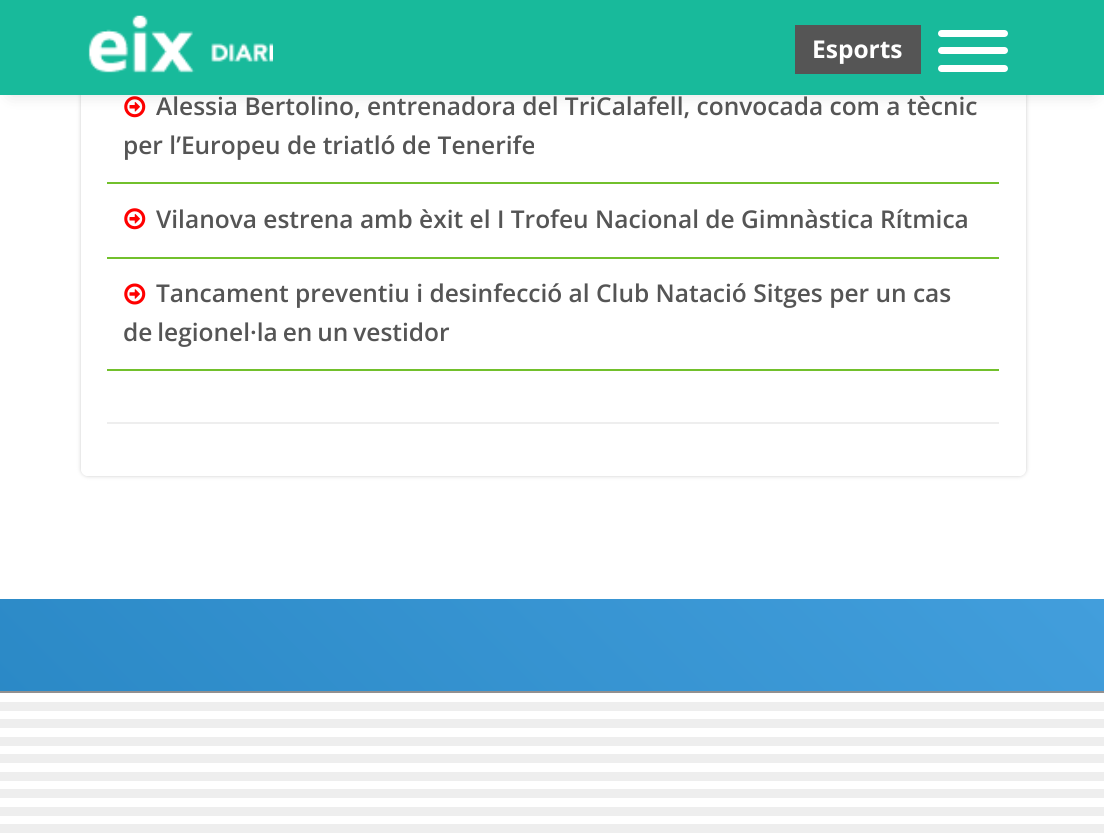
import math
import cairo



def draw_spaced(context, x, y, s, letter, word):
    context.move_to(x, y)
    for ch in s:
        context.show_text(ch)
        context.rel_move_to(letter + word * (ch == ' '), 0)


def rounded_rect(context, x, y, w, h, r):
    context.new_sub_path()
    for i, (u, v) in enumerate([(x + w - r, y + h - r), (x + r, y + h - r), (x + r, y + r), (x + w - r, y + r)]):
        context.arc(u, v, r, i * math.pi / 2, (i + 1) * math.pi / 2)
    context.close_path()


def draw_shadow(context, x, y, w, h, r, blur, alpha):
    context.push_group_with_content(cairo.Content.ALPHA)
    context.set_operator(cairo.Operator.SOURCE)
    for i in range(15, -16, -2):
        e = blur * i / 6
        if min(w, h) + 2 * e > 0:
            context.set_source_rgba(0, 0, 0, alpha * math.erfc((i - 1) / 8.5) / 2)
            rounded_rect(context, x - e, y - e, w + 2 * e, h + 2 * e, max(0, min(r + e + blur * .6, min(w, h) / 2 + e)))
            context.fill()
    context.mask(context.pop_group())


def draw_image(context, path, x, y, w, h):
    context.save()
    context.set_source_surface(cairo.ImageSurface.create_from_png(path), x, y)
    context.rectangle(x, y, w, h)
    context.fill()
    context.restore()


def draw(context):
    context.set_source_rgb(1, 1, 1)
    context.paint()
    context.save()
    context.set_fill_rule(cairo.FillRule.EVEN_ODD)
    context.new_path()
    context.move_to(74, 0)
    context.line_to(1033, 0)
    context.line_to(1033, 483)
    context.line_to(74, 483)
    context.close_path()
    context.move_to(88, -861)
    context.line_to(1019, -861)
    context.curve_to(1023, -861, 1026, -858, 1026, -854)
    context.line_to(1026, 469)
    context.curve_to(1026, 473, 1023, 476, 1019, 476)
    context.line_to(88, 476)
    context.curve_to(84, 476, 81, 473, 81, 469)
    context.line_to(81, -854)
    context.curve_to(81, -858, 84, -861, 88, -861)
    context.close_path()
    context.clip()
    context.set_source_rgb(204 / 255, 204 / 255, 204 / 255)
    draw_shadow(context, 81, -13, 945, 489, 7, 2, 1)
    context.restore()
    draw_image(context, "images/2.png", 124, 96, 22, 22)
    context.set_source_rgb(0, 0, 0)
    draw_shadow(context, 11, 18, 1083, 75, 0, 9, 0.15)
    context.set_source_rgb(24 / 255, 186 / 255, 155 / 255)
    context.rectangle(0, 0, 1104, 95)
    context.fill()
    draw_image(context, "images/1.png", 88, 15, 185, 58)
    context.set_source_rgb(85 / 255, 85 / 255, 85 / 255)
    context.rectangle(795, 25, 126, 49)
    context.fill()
    context.set_source_rgb(1, 1, 1)
    rounded_rect(context, 938, 30, 70, 7, 3.5)
    context.fill()
    rounded_rect(context, 938, 47, 70, 7, 3.5)
    context.fill()
    rounded_rect(context, 938, 65, 70, 7, 3.5)
    context.fill()
    context.set_source_rgb(114 / 255, 192 / 255, 44 / 255)
    context.rectangle(107, 182, 892, 2)
    context.fill()
    context.rectangle(107, 257, 892, 2)
    context.fill()
    draw_image(context, "images/2.png", 124, 208, 22, 22)
    context.rectangle(107, 369, 892, 2)
    context.fill()
    draw_image(context, "images/3.png", 124, 283, 22, 22)
    context.set_source_rgb(238 / 255, 238 / 255, 238 / 255)
    context.rectangle(107, 422, 892, 2)
    context.fill()
    gradient = cairo.LinearGradient(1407, 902, -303, 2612)
    gradient.add_color_stop_rgba(0, 66 / 255, 158 / 255, 220 / 255, 1)
    gradient.add_color_stop_rgba(1, 0, 98 / 255, 158 / 255, 1)
    context.set_source(gradient)
    context.rectangle(0, 599, 1104, 92)
    context.fill()
    draw_image(context, "images/4.png", 0, 693, 1104, 147)
    context.set_source_rgb(146 / 255, 144 / 255, 144 / 255)
    context.rectangle(0, 691, 1104, 2)
    context.fill()
    context.select_font_face("Open Sans", cairo.FontSlant.NORMAL, cairo.FontWeight.BOLD)
    context.set_font_size(24.5)
    context.set_source_rgb(1, 1, 1)
    context.move_to(812, 58)
    context.show_text("Esports")
    context.select_font_face("Open Sans SemiBold")
    context.set_source_rgb(85 / 255, 85 / 255, 85 / 255)
    context.move_to(156, 115)
    context.show_text("Alessia Bertolino, entrenadora del TriCalafell, convocada com a tècnic")
    context.move_to(123, 154)
    context.show_text("per l’Europeu de triatló de Tenerife")
    context.move_to(156, 228)
    context.show_text("Vilanova estrena amb èxit el I Trofeu Nacional de Gimnàstica Rítmica")
    context.move_to(156, 302)
    context.show_text("Tancament preventiu i desinfecció al Club Natació Sitges per un cas")
    draw_spaced(context, 123, 341, "de legionel·la en un vestidor", 0, -1.5)


surface = cairo.ImageSurface(cairo.Format.RGB24, 1104, 840)
context = cairo.Context(surface)
options = cairo.FontOptions()
options.set_hint_metrics(cairo.HintMetrics.OFF)
options.set_hint_style(cairo.HintStyle.NONE)
context.set_font_options(options)
context.set_miter_limit(4)
draw(context)
surface.write_to_png("out.png")
